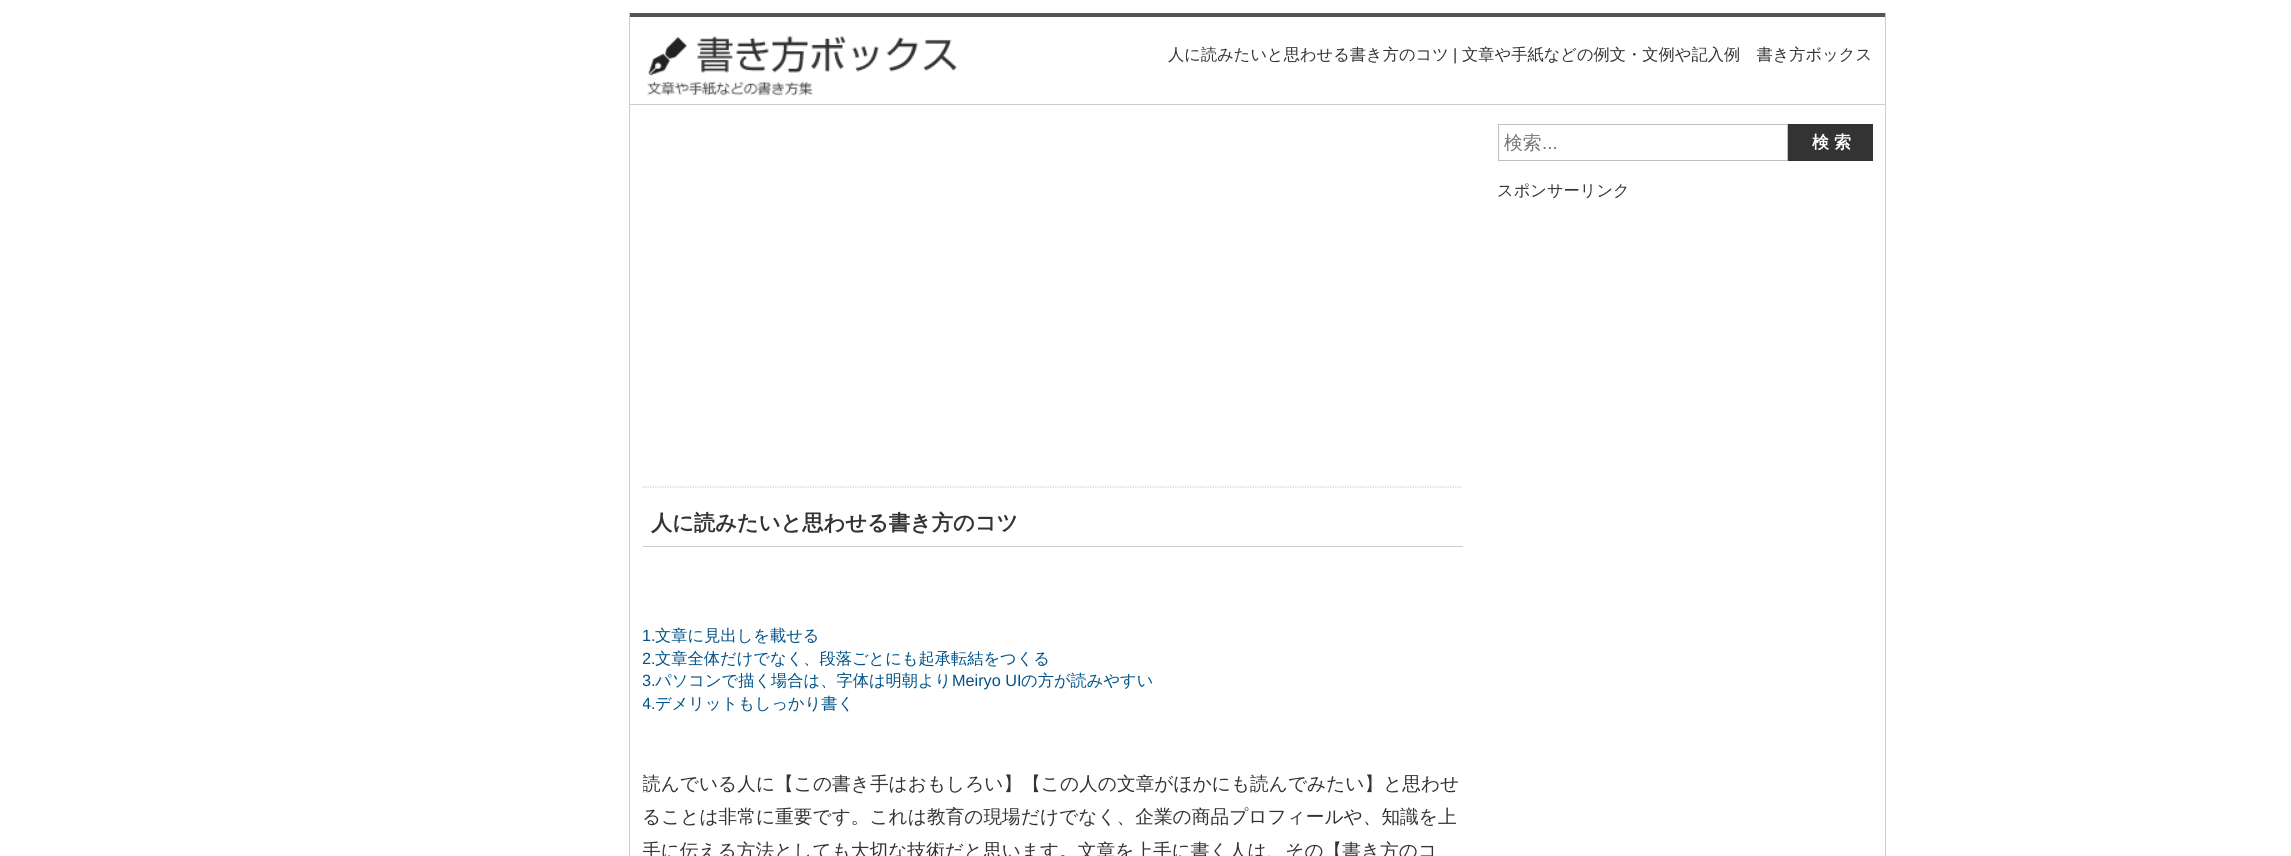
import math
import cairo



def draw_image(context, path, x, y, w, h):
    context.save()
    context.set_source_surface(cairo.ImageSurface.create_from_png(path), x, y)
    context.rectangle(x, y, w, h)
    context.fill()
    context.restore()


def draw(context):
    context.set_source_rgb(1, 1, 1)
    context.paint()
    context.set_source_rgb(204 / 255, 204 / 255, 204 / 255)
    context.rectangle(1885, 13, 1, 843)
    context.fill()
    context.rectangle(629, 13, 1, 843)
    context.fill()
    context.set_source_rgb(85 / 255, 85 / 255, 85 / 255)
    context.rectangle(630, 13, 1255, 4)
    context.fill()
    context.set_source_rgb(204 / 255, 204 / 255, 204 / 255)
    context.rectangle(630, 104, 1255, 1)
    context.fill()
    draw_image(context, "images/1.png", 647, 36, 310, 60)
    context.rectangle(1498.5, 124.5, 289, 36)
    context.set_source_rgb(191 / 255, 191 / 255, 191 / 255)
    context.set_line_width(1)
    context.stroke()
    context.set_source_rgb(51 / 255, 51 / 255, 51 / 255)
    context.rectangle(1788, 124, 85, 37)
    context.fill()
    context.new_path()
    context.move_to(642.5, 487)
    context.line_to(1462.5, 487)
    context.set_source_rgb(204 / 255, 204 / 255, 204 / 255)
    context.set_line_width(1.2)
    context.set_dash([1.25, 1.25])
    context.stroke()
    context.rectangle(643, 546, 820, 1)
    context.fill()
    context.select_font_face("WenQuanYi Zen Hei Medium")
    context.set_font_size(16.25)
    context.set_source_rgb(51 / 255, 51 / 255, 51 / 255)
    context.move_to(1168, 60)
    context.show_text("人に読みたいと思わせる書き方のコツ")
    context.select_font_face("Liberation Sans")
    context.move_to(1453, 60)
    context.show_text("|")
    context.select_font_face("WenQuanYi Zen Hei Medium")
    context.move_to(1462, 60)
    context.show_text("文章や手紙などの例文・文例や記入例　書き方ボックス")
    context.set_font_size(18.7)
    context.set_source_rgb(117 / 255, 117 / 255, 117 / 255)
    context.move_to(1504, 149)
    context.show_text("検索")
    context.select_font_face("Liberation Sans")
    context.move_to(1542, 149)
    context.show_text("...")
    context.select_font_face("WenQuanYi Zen Hei", cairo.FontSlant.NORMAL, cairo.FontWeight.BOLD)
    context.set_font_size(17)
    context.set_source_rgb(1, 1, 1)
    context.move_to(1812, 148)
    context.show_text("検 索")
    context.select_font_face("WenQuanYi Zen Hei Medium")
    context.set_font_size(16.25)
    context.set_source_rgb(51 / 255, 51 / 255, 51 / 255)
    context.move_to(1497, 196)
    context.show_text("スポンサーリンク")
    context.select_font_face("WenQuanYi Zen Hei", cairo.FontSlant.NORMAL, cairo.FontWeight.BOLD)
    context.set_font_size(21.25)
    context.move_to(651, 530)
    context.show_text("人に読みたいと思わせる書き方のコツ")
    context.select_font_face("Liberation Sans")
    context.set_font_size(16.25)
    context.set_source_rgb(0, 82 / 255, 136 / 255)
    context.move_to(642, 641)
    context.show_text("1.")
    context.select_font_face("WenQuanYi Zen Hei Medium")
    context.move_to(655, 641)
    context.show_text("文章に見出しを載せる")
    context.save()
    context.rectangle(643, 500, 820, 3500)
    context.clip()
    context.select_font_face("Liberation Sans")
    context.move_to(642, 664)
    context.show_text("2.")
    context.restore()
    context.move_to(655, 664)
    context.show_text("文章全体だけでなく、段落ごとにも起承転結をつくる")
    context.save()
    context.rectangle(643, 500, 820, 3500)
    context.clip()
    context.select_font_face("Liberation Sans")
    context.move_to(642, 686)
    context.show_text("3.")
    context.restore()
    context.move_to(655, 686)
    context.show_text("パソコンで描く場合は、字体は明朝より")
    context.select_font_face("Liberation Sans")
    context.move_to(952, 686)
    context.show_text("Meiryo UI")
    context.select_font_face("WenQuanYi Zen Hei Medium")
    context.move_to(1021, 686)
    context.show_text("の方が読みやすい")
    context.save()
    context.rectangle(643, 500, 820, 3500)
    context.clip()
    context.select_font_face("Liberation Sans")
    context.move_to(642, 709)
    context.show_text("4.")
    context.restore()
    context.move_to(655, 709)
    context.show_text("デメリットもしっかり書く")
    context.save()
    context.rectangle(643, 500, 820, 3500)
    context.clip()
    context.set_font_size(18.7)
    context.set_source_rgb(51 / 255, 51 / 255, 51 / 255)
    context.move_to(642, 790)
    context.show_text("読んでいる人に【この書き手はおもしろい】【この人の文章がほかにも読んでみたい】と思わせ")
    context.restore()
    context.set_font_size(18.7)
    context.set_source_rgb(51 / 255, 51 / 255, 51 / 255)
    context.move_to(642, 823)
    context.show_text("ることは非常に重要です。これは教育の現場だけでなく、企業の商品プロフィールや、知識を上")
    context.save()
    context.rectangle(643, 500, 820, 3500)
    context.clip()
    context.move_to(642, 857)
    context.show_text("手に伝える方法としても大切な技術だと思います。文章を上手に書く人は、その【書き方のコ")
    context.restore()


surface = cairo.ImageSurface(cairo.Format.RGB24, 2291, 856)
context = cairo.Context(surface)
options = cairo.FontOptions()
options.set_hint_metrics(cairo.HintMetrics.OFF)
options.set_hint_style(cairo.HintStyle.NONE)
context.set_font_options(options)
context.set_miter_limit(4)
draw(context)
surface.write_to_png("out.png")
